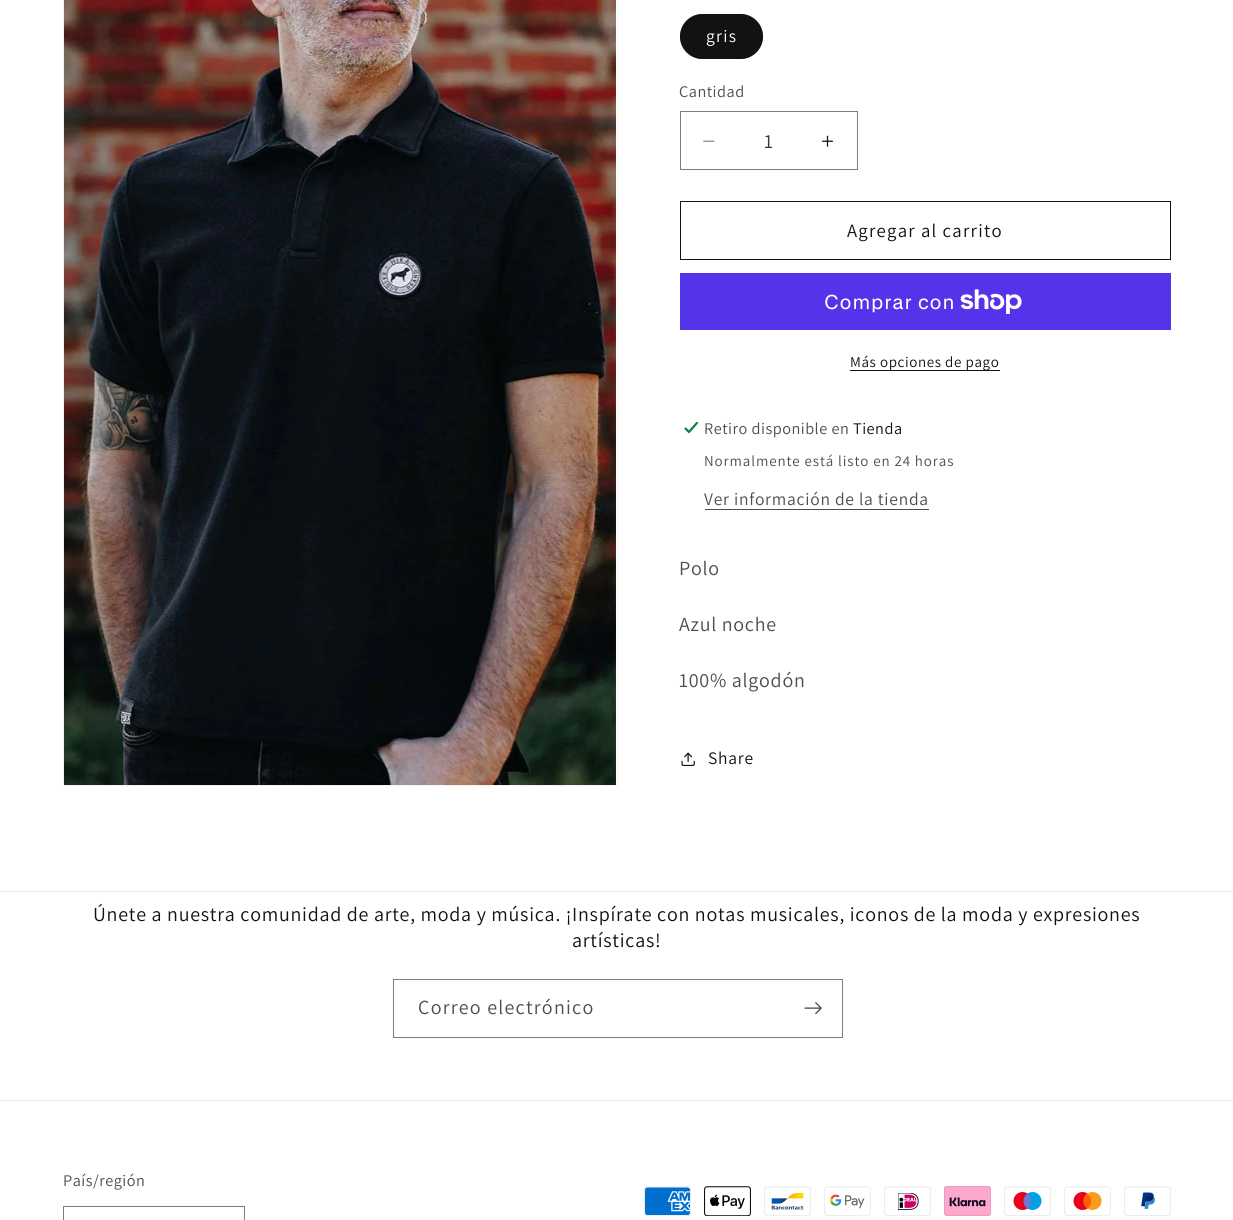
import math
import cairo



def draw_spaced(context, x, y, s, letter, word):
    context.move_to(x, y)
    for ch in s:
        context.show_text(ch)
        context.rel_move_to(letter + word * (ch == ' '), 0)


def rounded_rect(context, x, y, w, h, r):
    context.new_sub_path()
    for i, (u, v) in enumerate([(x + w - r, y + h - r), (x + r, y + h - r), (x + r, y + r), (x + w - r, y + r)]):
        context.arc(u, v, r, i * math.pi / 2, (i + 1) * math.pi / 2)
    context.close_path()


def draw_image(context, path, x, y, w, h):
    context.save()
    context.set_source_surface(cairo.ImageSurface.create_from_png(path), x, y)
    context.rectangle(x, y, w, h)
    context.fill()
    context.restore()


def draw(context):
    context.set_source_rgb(1, 1, 1)
    context.paint()
    context.rectangle(63.5, -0.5, 554, 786)
    context.set_source_rgb(243 / 255, 243 / 255, 243 / 255)
    context.set_line_width(1)
    context.stroke()
    draw_image(context, "images/1.png", 64, 0, 552, 785)
    context.set_source_rgb(18 / 255, 18 / 255, 18 / 255)
    rounded_rect(context, 680, 14, 83, 45, 22.5)
    context.fill()
    rounded_rect(context, 680.5, 14.5, 82, 44, 22)
    context.set_source_rgba(18 / 255, 18 / 255, 18 / 255, 0.55)
    context.stroke()
    draw_image(context, "images/2.png", 703, 140, 12, 2)
    draw_image(context, "images/3.png", 821, 135, 13, 12)
    context.rectangle(680.5, 111.5, 177, 58)
    context.set_source_rgb(125 / 255, 125 / 255, 125 / 255)
    context.stroke()
    context.rectangle(680.5, 201.5, 490, 58)
    context.set_source_rgb(18 / 255, 18 / 255, 18 / 255)
    context.stroke()
    context.set_source_rgb(84 / 255, 51 / 255, 235 / 255)
    context.rectangle(680, 273, 491, 57)
    context.fill()
    draw_image(context, "images/4.png", 960, 289, 62, 25)
    context.set_source_rgb(18 / 255, 18 / 255, 18 / 255)
    context.rectangle(850, 370, 150, 1)
    context.fill()
    draw_image(context, "images/5.png", 684, 421, 14, 13)
    context.set_source_rgb(77 / 255, 77 / 255, 77 / 255)
    context.rectangle(705, 509, 224, 1)
    context.fill()
    draw_image(context, "images/6.png", 681, 752, 14, 14)
    context.set_source_rgb(236 / 255, 236 / 255, 236 / 255)
    context.rectangle(0, 891, 1233, 1)
    context.fill()
    context.rectangle(393.5, 979.5, 449, 58)
    context.set_source_rgb(125 / 255, 125 / 255, 125 / 255)
    context.stroke()
    draw_image(context, "images/7.png", 804, 1002, 18, 13)
    context.set_source_rgb(236 / 255, 236 / 255, 236 / 255)
    context.rectangle(0, 1100, 1233, 1)
    context.fill()
    context.rectangle(63.5, 1206.5, 181, 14)
    context.set_source_rgb(125 / 255, 125 / 255, 125 / 255)
    context.stroke()
    draw_image(context, "images/8.png", 644, 1186, 47, 30)
    draw_image(context, "images/9.png", 704, 1186, 47, 30)
    draw_image(context, "images/10.png", 764, 1186, 47, 30)
    draw_image(context, "images/11.png", 824, 1186, 47, 30)
    draw_image(context, "images/12.png", 884, 1186, 47, 30)
    draw_image(context, "images/13.png", 944, 1186, 47, 30)
    draw_image(context, "images/14.png", 1004, 1186, 47, 30)
    draw_image(context, "images/15.png", 1064, 1186, 47, 30)
    draw_image(context, "images/16.png", 1124, 1186, 47, 30)
    context.select_font_face("Assistant")
    context.set_font_size(17.5)
    context.set_source_rgb(1, 1, 1)
    draw_spaced(context, 706, 42, "gris", 1.25, 0)
    context.set_font_size(16.25)
    context.set_source_rgb(77 / 255, 77 / 255, 77 / 255)
    draw_spaced(context, 679, 97, "Cantidad", 0.5, 0)
    context.set_font_size(20)
    context.set_source_rgb(54 / 255, 54 / 255, 54 / 255)
    context.move_to(764, 148)
    context.show_text("1")
    context.set_font_size(18.75)
    context.set_source_rgb(18 / 255, 18 / 255, 18 / 255)
    draw_spaced(context, 847, 237, "Agregar al carrito", 1.25, 0)
    context.select_font_face("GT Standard")
    context.set_font_size(20)
    context.set_source_rgb(1, 1, 1)
    draw_spaced(context, 824, 309, "Comprar con", 0.75, 0)
    context.select_font_face("Assistant")
    context.set_font_size(15)
    context.set_source_rgb(18 / 255, 18 / 255, 18 / 255)
    draw_spaced(context, 850, 367, "Más opciones de pago", 0.6, 0)
    context.set_font_size(16.25)
    context.set_source_rgb(77 / 255, 77 / 255, 77 / 255)
    draw_spaced(context, 704, 434, "Retiro disponible en", 0.5, 0)
    context.set_source_rgb(18 / 255, 18 / 255, 18 / 255)
    draw_spaced(context, 853, 434, "Tienda", 0.5, 0)
    context.set_font_size(15)
    context.set_source_rgb(77 / 255, 77 / 255, 77 / 255)
    draw_spaced(context, 704, 466, "Normalmente está listo en 24 horas", 0.9, 0)
    context.set_font_size(17.5)
    draw_spaced(context, 704, 505, "Ver información de la tienda", 0.75, 0)
    context.set_font_size(20)
    draw_spaced(context, 679, 575, "Polo", 0.75, 0)
    draw_spaced(context, 679, 631, "Azul noche", 0.75, 0)
    draw_spaced(context, 679, 687, "100% algodón", 0.75, 0)
    context.set_font_size(17.5)
    context.set_source_rgb(18 / 255, 18 / 255, 18 / 255)
    draw_spaced(context, 708, 764, "Share", 0.75, 0)
    context.set_font_size(20)
    draw_spaced(context, 93, 921, "Únete a nuestra comunidad de arte, moda y música. ¡Inspírate con notas musicales, iconos de la moda y expresiones", 0.75, 0)
    draw_spaced(context, 572, 947, "artísticas!", 0.75, 0)
    context.set_source_rgb(77 / 255, 77 / 255, 77 / 255)
    draw_spaced(context, 418, 1014, "Correo electrónico", 1.25, 0)
    context.set_font_size(16.25)
    draw_spaced(context, 63, 1186, "País/región", 0.5, 0)


surface = cairo.ImageSurface(cairo.Format.RGB24, 1233, 1220)
context = cairo.Context(surface)
options = cairo.FontOptions()
options.set_hint_metrics(cairo.HintMetrics.OFF)
options.set_hint_style(cairo.HintStyle.NONE)
context.set_font_options(options)
context.set_miter_limit(4)
draw(context)
surface.write_to_png("out.png")
